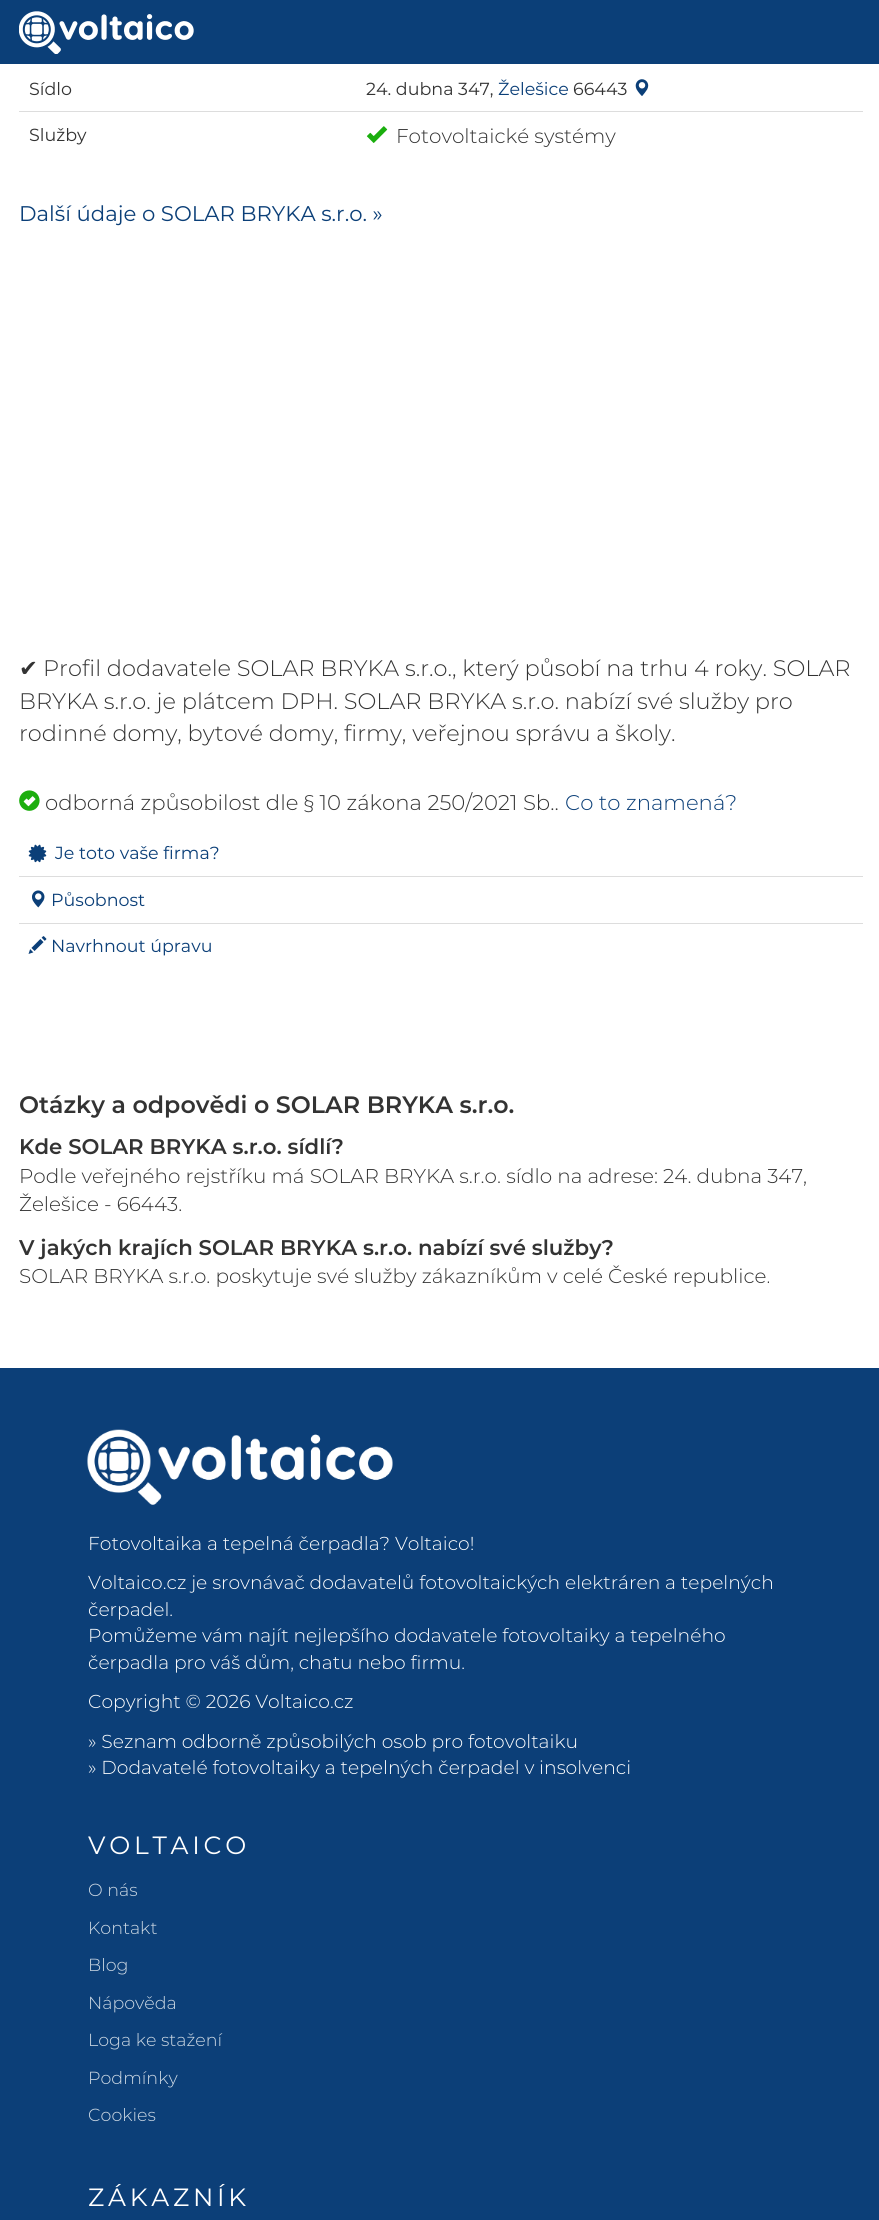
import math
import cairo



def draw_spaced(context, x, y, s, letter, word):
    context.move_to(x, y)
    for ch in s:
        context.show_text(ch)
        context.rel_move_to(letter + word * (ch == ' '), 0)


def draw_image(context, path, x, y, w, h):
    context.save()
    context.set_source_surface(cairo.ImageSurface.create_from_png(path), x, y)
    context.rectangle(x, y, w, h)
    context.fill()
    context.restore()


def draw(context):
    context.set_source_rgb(1, 1, 1)
    context.paint()
    context.set_source_rgb(11 / 255, 63 / 255, 120 / 255)
    context.rectangle(0, 0, 879, 64)
    context.fill()
    draw_image(context, "images/1.png", 19, 11, 175, 43)
    draw_image(context, "images/2.png", 635, 79, 14, 17)
    context.set_source_rgb(221 / 255, 221 / 255, 221 / 255)
    context.rectangle(19, 111, 844, 1)
    context.fill()
    draw_image(context, "images/3.png", 366, 126, 22, 17)
    draw_image(context, "images/4.png", 19, 790, 21, 21)
    draw_image(context, "images/5.png", 28, 844, 19, 19)
    context.rectangle(19, 876, 844, 1)
    context.fill()
    draw_image(context, "images/6.png", 32, 890, 13, 18)
    context.rectangle(19, 923, 844, 1)
    context.fill()
    draw_image(context, "images/7.png", 28, 936, 19, 18)
    context.set_source_rgb(12 / 255, 63 / 255, 120 / 255)
    context.rectangle(0, 1368, 879, 852)
    context.fill()
    draw_image(context, "images/8.png", 87, 1429, 306, 76)
    context.select_font_face("Montserrat")
    context.set_font_size(17.5)
    context.set_source_rgb(51 / 255, 51 / 255, 51 / 255)
    context.move_to(29, 95)
    context.show_text("Sídlo")
    context.move_to(366, 95)
    context.show_text("24. dubna 347,")
    context.set_source_rgb(11 / 255, 63 / 255, 120 / 255)
    context.move_to(498, 95)
    context.show_text("Želešice")
    context.set_source_rgb(51 / 255, 51 / 255, 51 / 255)
    context.move_to(573, 95)
    context.show_text("66443")
    context.move_to(29, 141)
    context.show_text("Služby")
    context.select_font_face("Montserrat Light")
    context.set_font_size(20)
    context.move_to(396, 143)
    context.show_text("Fotovoltaické systémy")
    context.select_font_face("Montserrat")
    context.set_font_size(21.25)
    context.set_source_rgb(11 / 255, 63 / 255, 120 / 255)
    context.move_to(19, 221)
    context.show_text("Další údaje o SOLAR BRYKA s.r.o. »")
    context.select_font_face("DejaVu Sans")
    context.set_font_size(22.5)
    context.set_source_rgb(51 / 255, 51 / 255, 51 / 255)
    context.move_to(19, 676)
    context.show_text("✔")
    context.select_font_face("Montserrat Light")
    context.move_to(43, 676)
    context.show_text("Profil dodavatele SOLAR BRYKA s.r.o., který působí na trhu 4 roky. SOLAR")
    context.move_to(19, 709)
    context.show_text("BRYKA s.r.o. je plátcem DPH. SOLAR BRYKA s.r.o. nabízí své služby pro")
    context.move_to(19, 741)
    context.show_text("rodinné domy, bytové domy, firmy, veřejnou správu a školy.")
    context.set_font_size(21.25)
    context.move_to(45, 810)
    context.show_text("odborná způsobilost dle § 10 zákona 250/2021 Sb..")
    context.set_source_rgb(11 / 255, 63 / 255, 120 / 255)
    context.move_to(565, 810)
    context.show_text("Co to znamená?")
    context.select_font_face("Montserrat")
    context.set_font_size(17.5)
    context.move_to(55, 859)
    context.show_text("Je toto vaše firma?")
    context.move_to(51, 906)
    context.show_text("Působnost")
    context.move_to(51, 952)
    context.show_text("Navrhnout úpravu")
    context.select_font_face("Montserrat SemiBold")
    context.set_font_size(23.75)
    context.set_source_rgb(51 / 255, 51 / 255, 51 / 255)
    context.move_to(19, 1113)
    context.show_text("Otázky a odpovědi o SOLAR BRYKA s.r.o.")
    context.set_font_size(21.25)
    context.move_to(19, 1154)
    context.show_text("Kde SOLAR BRYKA s.r.o. sídlí?")
    context.select_font_face("Montserrat Light")
    context.set_font_size(20)
    context.move_to(19, 1183)
    context.show_text("Podle veřejného rejstříku má SOLAR BRYKA s.r.o. sídlo na adrese: 24. dubna 347,")
    context.move_to(19, 1211)
    context.show_text("Želešice - 66443.")
    context.select_font_face("Montserrat SemiBold")
    context.set_font_size(21.25)
    context.move_to(19, 1255)
    context.show_text("V jakých krajích SOLAR BRYKA s.r.o. nabízí své služby?")
    context.select_font_face("Montserrat Light")
    context.set_font_size(20)
    context.move_to(19, 1283)
    context.show_text("SOLAR BRYKA s.r.o. poskytuje své služby zákazníkům v celé České republice.")
    context.set_font_size(18.75)
    context.set_source_rgb(1, 1, 1)
    context.move_to(88, 1550)
    context.show_text("Fotovoltaika a tepelná čerpadla? Voltaico!")
    context.move_to(88, 1589)
    context.show_text("Voltaico.cz je srovnávač dodavatelů fotovoltaických elektráren a tepelných")
    context.move_to(88, 1616)
    context.show_text("čerpadel.")
    context.move_to(88, 1642)
    context.show_text("Pomůžeme vám najít nejlepšího dodavatele fotovoltaiky a tepelného")
    context.move_to(88, 1669)
    context.show_text("čerpadla pro váš dům, chatu nebo firmu.")
    context.move_to(88, 1708)
    context.show_text("Copyright © 2026 Voltaico.cz")
    context.move_to(88, 1748)
    context.show_text("» Seznam odborně způsobilých osob pro fotovoltaiku")
    context.move_to(88, 1774)
    context.show_text("» Dodavatelé fotovoltaiky a tepelných čerpadel v insolvenci")
    context.select_font_face("Montserrat")
    context.set_font_size(25)
    draw_spaced(context, 88, 1854, "VOLTAICO", 3.75, 0)
    context.select_font_face("Montserrat Light")
    context.set_font_size(17.5)
    context.set_source_rgb(206 / 255, 217 / 255, 228 / 255)
    context.move_to(88, 1896)
    context.show_text("O nás")
    context.move_to(88, 1934)
    context.show_text("Kontakt")
    context.move_to(88, 1971)
    context.show_text("Blog")
    context.move_to(88, 2009)
    context.show_text("Nápověda")
    context.move_to(88, 2046)
    context.show_text("Loga ke stažení")
    context.move_to(88, 2084)
    context.show_text("Podmínky")
    context.move_to(88, 2121)
    context.show_text("Cookies")
    context.select_font_face("Montserrat")
    context.set_font_size(25)
    context.set_source_rgb(1, 1, 1)
    draw_spaced(context, 88, 2206, "ZÁKAZNÍK", 3.75, 0)


surface = cairo.ImageSurface(cairo.Format.RGB24, 879, 2220)
context = cairo.Context(surface)
options = cairo.FontOptions()
options.set_hint_metrics(cairo.HintMetrics.OFF)
options.set_hint_style(cairo.HintStyle.NONE)
context.set_font_options(options)
context.set_miter_limit(4)
draw(context)
surface.write_to_png("out.png")
